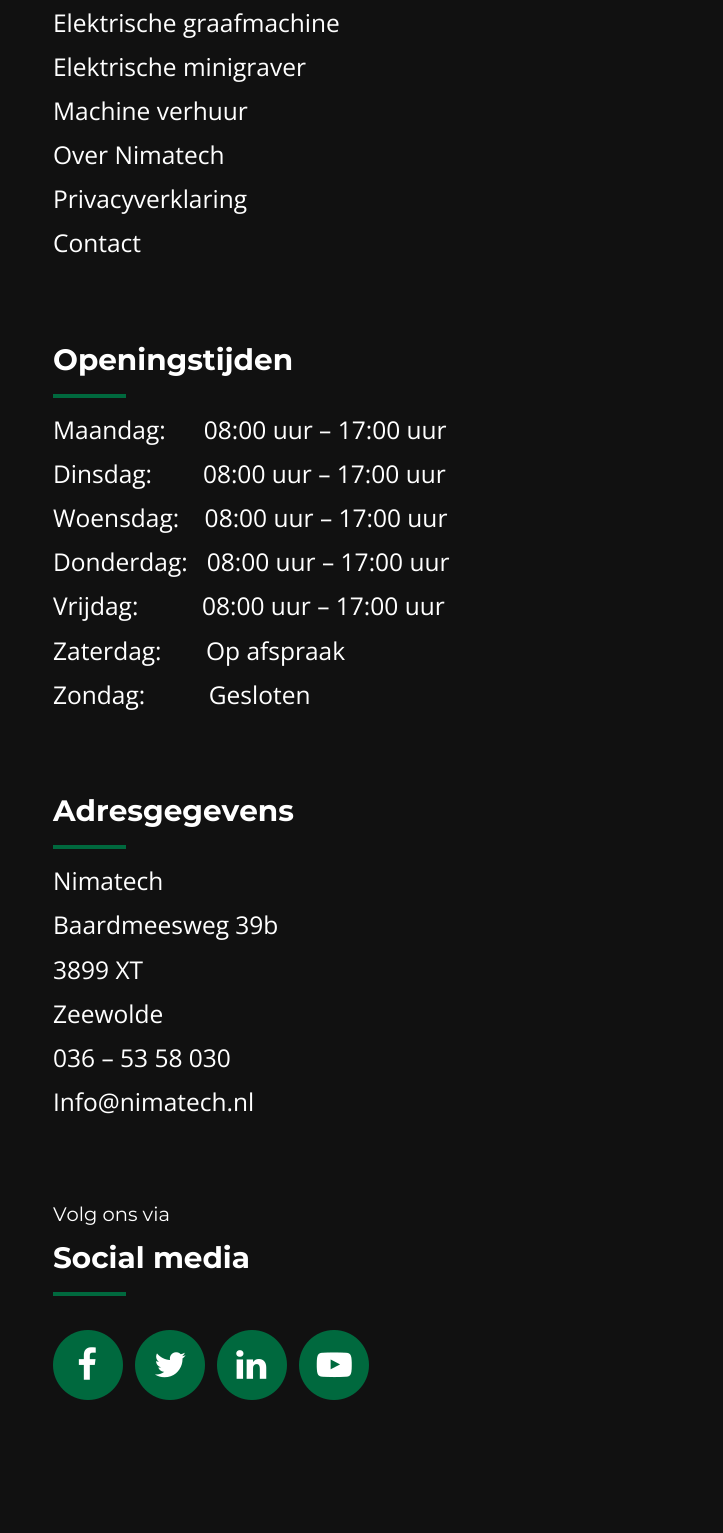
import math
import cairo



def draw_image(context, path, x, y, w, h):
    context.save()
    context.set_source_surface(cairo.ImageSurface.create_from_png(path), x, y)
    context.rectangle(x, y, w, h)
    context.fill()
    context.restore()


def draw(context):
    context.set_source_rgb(17 / 255, 17 / 255, 17 / 255)
    context.paint()
    context.set_source_rgb(0, 105 / 255, 62 / 255)
    context.rectangle(53, 394, 73, 4)
    context.fill()
    context.rectangle(53, 845, 73, 4)
    context.fill()
    context.rectangle(53, 1292, 73, 4)
    context.fill()
    context.arc(88, 1365, 35, 0, 2 * math.pi)
    context.fill()
    draw_image(context, "images/1.png", 78, 1347, 18, 33)
    context.arc(170, 1365, 35, 0, 2 * math.pi)
    context.fill()
    draw_image(context, "images/2.png", 155, 1352, 31, 26)
    context.arc(252, 1365, 35, 0, 2 * math.pi)
    context.fill()
    draw_image(context, "images/3.png", 236, 1350, 31, 29)
    context.arc(334, 1365, 35, 0, 2 * math.pi)
    context.fill()
    draw_image(context, "images/4.png", 316, 1352, 36, 26)
    context.select_font_face("Open Sans")
    context.set_font_size(24.5)
    context.set_source_rgb(1, 1, 1)
    context.move_to(53, 32)
    context.show_text("Elektrische graafmachine")
    context.move_to(53, 76)
    context.show_text("Elektrische minigraver")
    context.move_to(53, 120)
    context.show_text("Machine verhuur")
    context.move_to(53, 164)
    context.show_text("Over Nimatech")
    context.move_to(53, 208)
    context.show_text("Privacyverklaring")
    context.move_to(53, 252)
    context.show_text("Contact")
    context.select_font_face("Montserrat", cairo.FontSlant.NORMAL, cairo.FontWeight.BOLD)
    context.set_font_size(29.5)
    context.move_to(53, 370)
    context.show_text("Openingstijden")
    context.select_font_face("Open Sans")
    context.set_font_size(24.5)
    context.move_to(53, 439)
    context.show_text("Maandag:      08:00 uur – 17:00 uur")
    context.move_to(53, 483)
    context.show_text("Dinsdag:        08:00 uur – 17:00 uur")
    context.move_to(53, 527)
    context.show_text("Woensdag:    08:00 uur – 17:00 uur")
    context.move_to(53, 571)
    context.show_text("Donderdag:   08:00 uur – 17:00 uur")
    context.move_to(53, 615)
    context.show_text("Vrijdag:          08:00 uur – 17:00 uur")
    context.move_to(53, 660)
    context.show_text("Zaterdag:       Op afspraak")
    context.move_to(53, 704)
    context.show_text("Zondag:          Gesloten")
    context.select_font_face("Montserrat", cairo.FontSlant.NORMAL, cairo.FontWeight.BOLD)
    context.set_font_size(29.5)
    context.move_to(53, 821)
    context.show_text("Adresgegevens")
    context.select_font_face("Open Sans")
    context.set_font_size(24.5)
    context.move_to(53, 890)
    context.show_text("Nimatech")
    context.move_to(53, 934)
    context.show_text("Baardmeesweg 39b")
    context.move_to(53, 979)
    context.show_text("3899 XT")
    context.move_to(53, 1023)
    context.show_text("Zeewolde")
    context.move_to(53, 1067)
    context.show_text("036 – 53 58 030")
    context.move_to(53, 1111)
    context.show_text("Info@nimatech.nl")
    context.select_font_face("Montserrat")
    context.set_font_size(19.5)
    context.move_to(53, 1221)
    context.show_text("Volg ons via")
    context.select_font_face("Montserrat", cairo.FontSlant.NORMAL, cairo.FontWeight.BOLD)
    context.set_font_size(29.5)
    context.move_to(53, 1268)
    context.show_text("Social media")


surface = cairo.ImageSurface(cairo.Format.RGB24, 723, 1533)
context = cairo.Context(surface)
options = cairo.FontOptions()
options.set_hint_metrics(cairo.HintMetrics.OFF)
options.set_hint_style(cairo.HintStyle.NONE)
context.set_font_options(options)
context.set_miter_limit(4)
draw(context)
surface.write_to_png("out.png")
